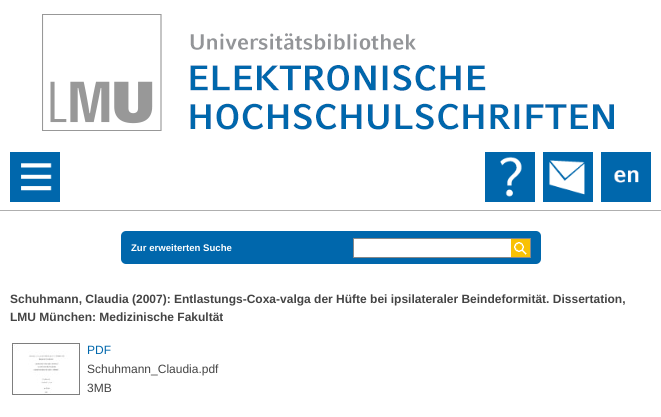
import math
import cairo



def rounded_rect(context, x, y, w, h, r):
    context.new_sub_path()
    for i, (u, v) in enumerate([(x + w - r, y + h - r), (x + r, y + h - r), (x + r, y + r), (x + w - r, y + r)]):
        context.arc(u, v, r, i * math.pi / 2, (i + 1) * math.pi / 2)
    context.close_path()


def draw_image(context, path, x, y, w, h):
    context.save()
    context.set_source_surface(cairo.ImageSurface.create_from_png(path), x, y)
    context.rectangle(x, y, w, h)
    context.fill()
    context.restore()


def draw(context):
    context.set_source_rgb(1, 1, 1)
    context.paint()
    draw_image(context, "images/1.png", 42, 14, 572, 117)
    context.set_source_rgb(0, 103 / 255, 172 / 255)
    context.rectangle(10, 152, 50, 50)
    context.fill()
    draw_image(context, "images/2.png", 21, 163, 31, 28)
    context.rectangle(485, 152, 50, 50)
    context.fill()
    draw_image(context, "images/3.png", 500, 156, 22, 41)
    context.rectangle(543, 152, 50, 50)
    context.fill()
    draw_image(context, "images/4.png", 549, 160, 36, 35)
    context.rectangle(601, 152, 50, 50)
    context.fill()
    draw_image(context, "images/5.png", 614, 170, 25, 13)
    context.set_source_rgb(175 / 255, 175 / 255, 175 / 255)
    context.rectangle(0, 210, 661, 1)
    context.fill()
    context.set_source_rgb(0, 103 / 255, 172 / 255)
    rounded_rect(context, 121, 231, 420, 33, 5)
    context.fill()
    context.set_source_rgb(1, 1, 1)
    context.rectangle(354, 239, 157, 18)
    context.fill()
    context.rectangle(353.5, 238.5, 177, 19)
    context.set_source_rgb(136 / 255, 136 / 255, 136 / 255)
    context.set_line_width(1)
    context.stroke()
    draw_image(context, "images/6.png", 511, 239, 19, 18)
    draw_image(context, "images/7.png", 12, 343, 68, 52)
    context.select_font_face("Liberation Sans", cairo.FontSlant.NORMAL, cairo.FontWeight.BOLD)
    context.set_font_size(9.6)
    context.set_source_rgb(1, 1, 1)
    context.move_to(131, 251)
    context.show_text("Zur erweiterten Suche")
    context.set_font_size(12)
    context.set_source_rgb(68 / 255, 68 / 255, 68 / 255)
    context.move_to(10, 303)
    context.show_text("Schuhmann, Claudia (2007): Entlastungs-Coxa-valga der Hüfte bei ipsilateraler Beindeformität. Dissertation,")
    context.move_to(10, 321)
    context.show_text("LMU München: Medizinische Fakultät")
    context.select_font_face("Liberation Sans")
    context.set_source_rgb(0, 103 / 255, 172 / 255)
    context.move_to(87, 354)
    context.show_text("PDF")
    context.set_source_rgb(68 / 255, 68 / 255, 68 / 255)
    context.move_to(87, 373)
    context.show_text("Schuhmann_Claudia.pdf")
    context.move_to(87, 392)
    context.show_text("3MB")


surface = cairo.ImageSurface(cairo.Format.RGB24, 661, 417)
context = cairo.Context(surface)
options = cairo.FontOptions()
options.set_hint_metrics(cairo.HintMetrics.OFF)
options.set_hint_style(cairo.HintStyle.NONE)
context.set_font_options(options)
context.set_miter_limit(4)
draw(context)
surface.write_to_png("out.png")
